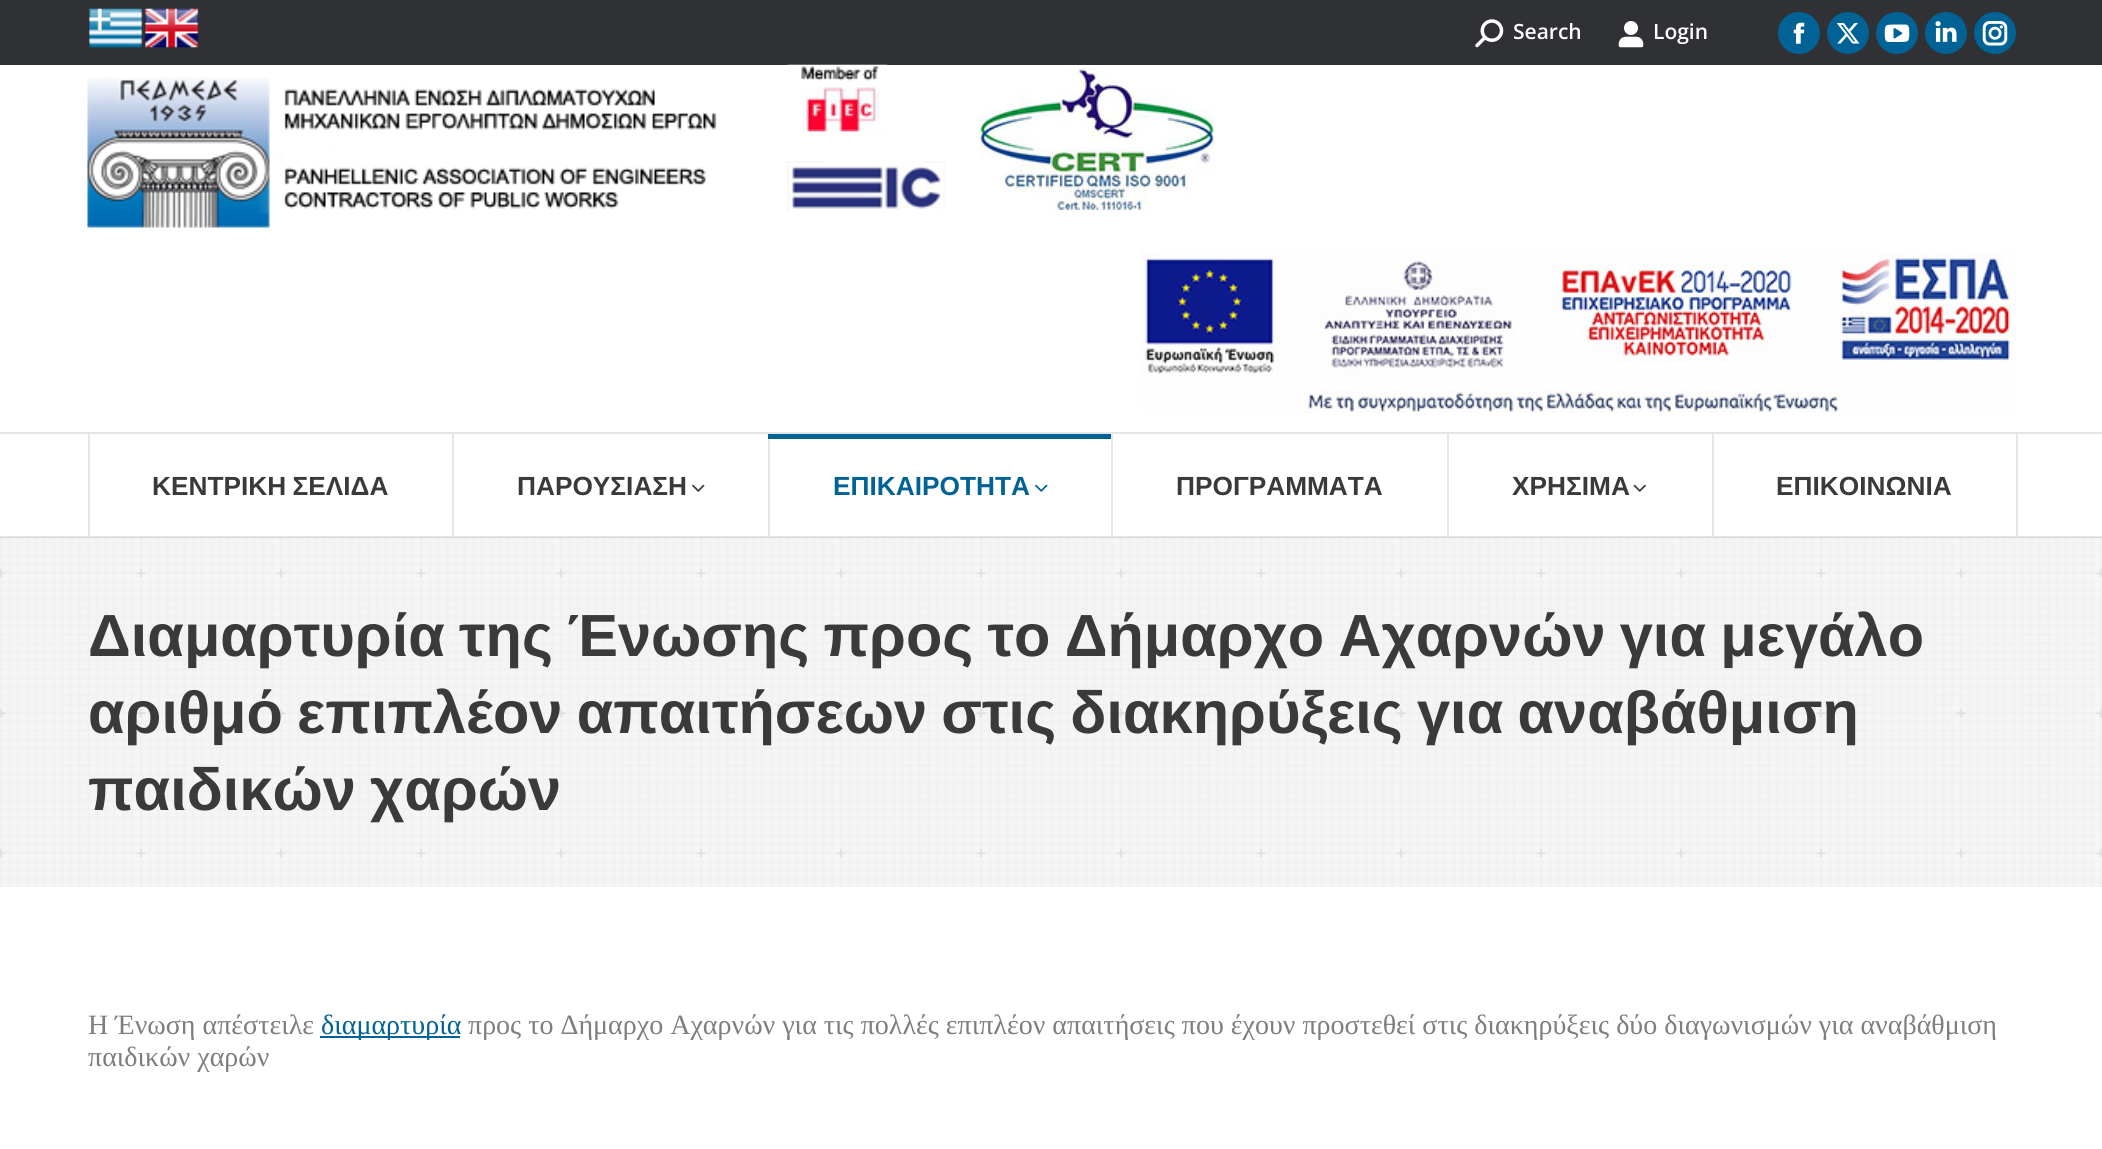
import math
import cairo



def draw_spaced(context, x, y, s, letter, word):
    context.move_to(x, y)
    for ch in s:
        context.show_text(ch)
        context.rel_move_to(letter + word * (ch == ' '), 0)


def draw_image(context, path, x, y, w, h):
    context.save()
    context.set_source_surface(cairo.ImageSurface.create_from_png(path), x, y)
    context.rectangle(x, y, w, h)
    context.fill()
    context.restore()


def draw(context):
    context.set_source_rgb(1, 1, 1)
    context.paint()
    context.set_source_rgb(246 / 255, 246 / 255, 246 / 255)
    context.rectangle(0, 537, 2102, 350)
    context.fill()
    draw_image(context, "images/18.png", 0, 537, 2102, 350)
    context.set_source_rgba(58 / 255, 58 / 255, 58 / 255, 0.13)
    context.rectangle(0, 536, 2102, 2)
    context.fill()
    context.set_source_rgb(48 / 255, 49 / 255, 53 / 255)
    context.rectangle(0, 0, 2102, 65)
    context.fill()
    draw_image(context, "images/1.png", 88, 8, 55, 40)
    draw_image(context, "images/2.png", 144, 8, 55, 40)
    draw_image(context, "images/3.png", 1475, 19, 29, 29)
    draw_image(context, "images/4.png", 1618, 21, 26, 27)
    context.set_source_rgb(0, 98 / 255, 149 / 255)
    context.arc(1799, 33, 21, 0, 2 * math.pi)
    context.fill()
    draw_image(context, "images/5.png", 1793, 22, 12, 22)
    context.arc(1848, 33, 21, 0, 2 * math.pi)
    context.fill()
    draw_image(context, "images/6.png", 1836, 23, 24, 21)
    context.arc(1897, 33, 21, 0, 2 * math.pi)
    context.fill()
    draw_image(context, "images/7.png", 1884, 24, 26, 18)
    context.arc(1946, 33, 21, 0, 2 * math.pi)
    context.fill()
    draw_image(context, "images/8.png", 1935, 21, 22, 21)
    context.arc(1995, 33, 21, 0, 2 * math.pi)
    context.fill()
    draw_image(context, "images/9.png", 1982, 21, 26, 25)
    draw_image(context, "images/10.png", 87, 77, 630, 151)
    draw_image(context, "images/11.png", 787, 64, 101, 72)
    draw_image(context, "images/12.png", 787, 161, 158, 51)
    draw_image(context, "images/13.png", 980, 68, 235, 142)
    draw_image(context, "images/14.png", 1141, 250, 875, 163)
    context.set_source_rgb(229 / 255, 229 / 255, 229 / 255)
    context.rectangle(0, 432, 2102, 2)
    context.fill()
    context.set_source_rgb(231 / 255, 231 / 255, 231 / 255)
    context.rectangle(88, 434, 2, 102)
    context.fill()
    context.rectangle(452, 434, 2, 102)
    context.fill()
    draw_image(context, "images/15.png", 692, 484, 13, 8)
    context.rectangle(768, 434, 2, 102)
    context.fill()
    context.set_source_rgb(0, 98 / 255, 149 / 255)
    context.rectangle(768, 434, 343, 5)
    context.fill()
    draw_image(context, "images/16.png", 1035, 484, 13, 8)
    context.set_source_rgb(231 / 255, 231 / 255, 231 / 255)
    context.rectangle(1111, 434, 2, 102)
    context.fill()
    context.rectangle(1447, 434, 2, 102)
    context.fill()
    draw_image(context, "images/17.png", 1633, 484, 13, 8)
    context.rectangle(1712, 434, 2, 102)
    context.fill()
    context.rectangle(2016, 434, 2, 102)
    context.fill()
    context.set_source_rgb(0, 98 / 255, 149 / 255)
    context.rectangle(320, 1036, 140, 2)
    context.fill()
    context.select_font_face("Open Sans SemiBold")
    context.set_font_size(21)
    context.set_source_rgb(1, 1, 1)
    context.move_to(1513, 39)
    context.show_text("Search")
    context.move_to(1653, 39)
    context.show_text("Login")
    context.select_font_face("Liberation Sans", cairo.FontSlant.NORMAL, cairo.FontWeight.BOLD)
    context.set_font_size(26.25)
    context.set_source_rgb(58 / 255, 58 / 255, 58 / 255)
    draw_spaced(context, 152, 495, "ΚΕΝΤΡΙΚΗ ΣΕΛΙΔΑ", 0, -1)
    context.move_to(517, 495)
    context.show_text("ΠΑΡΟΥΣΙΑΣΗ")
    context.set_source_rgb(0, 98 / 255, 149 / 255)
    context.move_to(833, 495)
    context.show_text("ΕΠΙΚΑΙΡΟΤΗΤΑ")
    context.set_source_rgb(58 / 255, 58 / 255, 58 / 255)
    context.move_to(1176, 495)
    context.show_text("ΠΡΟΓΡΑΜΜΑΤΑ")
    context.move_to(1512, 495)
    context.show_text("ΧΡΗΣΙΜΑ")
    context.move_to(1776, 495)
    context.show_text("ΕΠΙΚΟΙΝΩΝΙΑ")
    context.set_font_size(59.5)
    draw_spaced(context, 88, 656, "Διαμαρτυρία της Ένωσης προς το Δήμαρχο Αχαρνών για μεγάλο", 0, -2.25)
    draw_spaced(context, 88, 733, "αριθμό επιπλέον απαιτήσεων στις διακηρύξεις για αναβάθμιση", 0, -2.25)
    draw_spaced(context, 88, 810, "παιδικών χαρών", 0, -2.25)
    context.select_font_face("Liberation Serif")
    context.set_font_size(28)
    context.set_source_rgb(126 / 255, 126 / 255, 126 / 255)
    context.move_to(88, 1034)
    context.show_text("Η Ένωση απέστειλε")
    context.set_source_rgb(0, 98 / 255, 149 / 255)
    context.move_to(321, 1034)
    context.show_text("διαμαρτυρία")
    context.set_source_rgb(126 / 255, 126 / 255, 126 / 255)
    context.move_to(468, 1034)
    context.show_text("προς το Δήμαρχο Αχαρνών για τις πολλές επιπλέον απαιτήσεις που έχουν προστεθεί στις διακηρύξεις δύο διαγωνισμών για αναβάθμιση")
    context.move_to(88, 1066)
    context.show_text("παιδικών χαρών")


surface = cairo.ImageSurface(cairo.Format.RGB24, 2102, 1149)
context = cairo.Context(surface)
options = cairo.FontOptions()
options.set_hint_metrics(cairo.HintMetrics.OFF)
options.set_hint_style(cairo.HintStyle.NONE)
context.set_font_options(options)
context.set_miter_limit(4)
draw(context)
surface.write_to_png("out.png")
